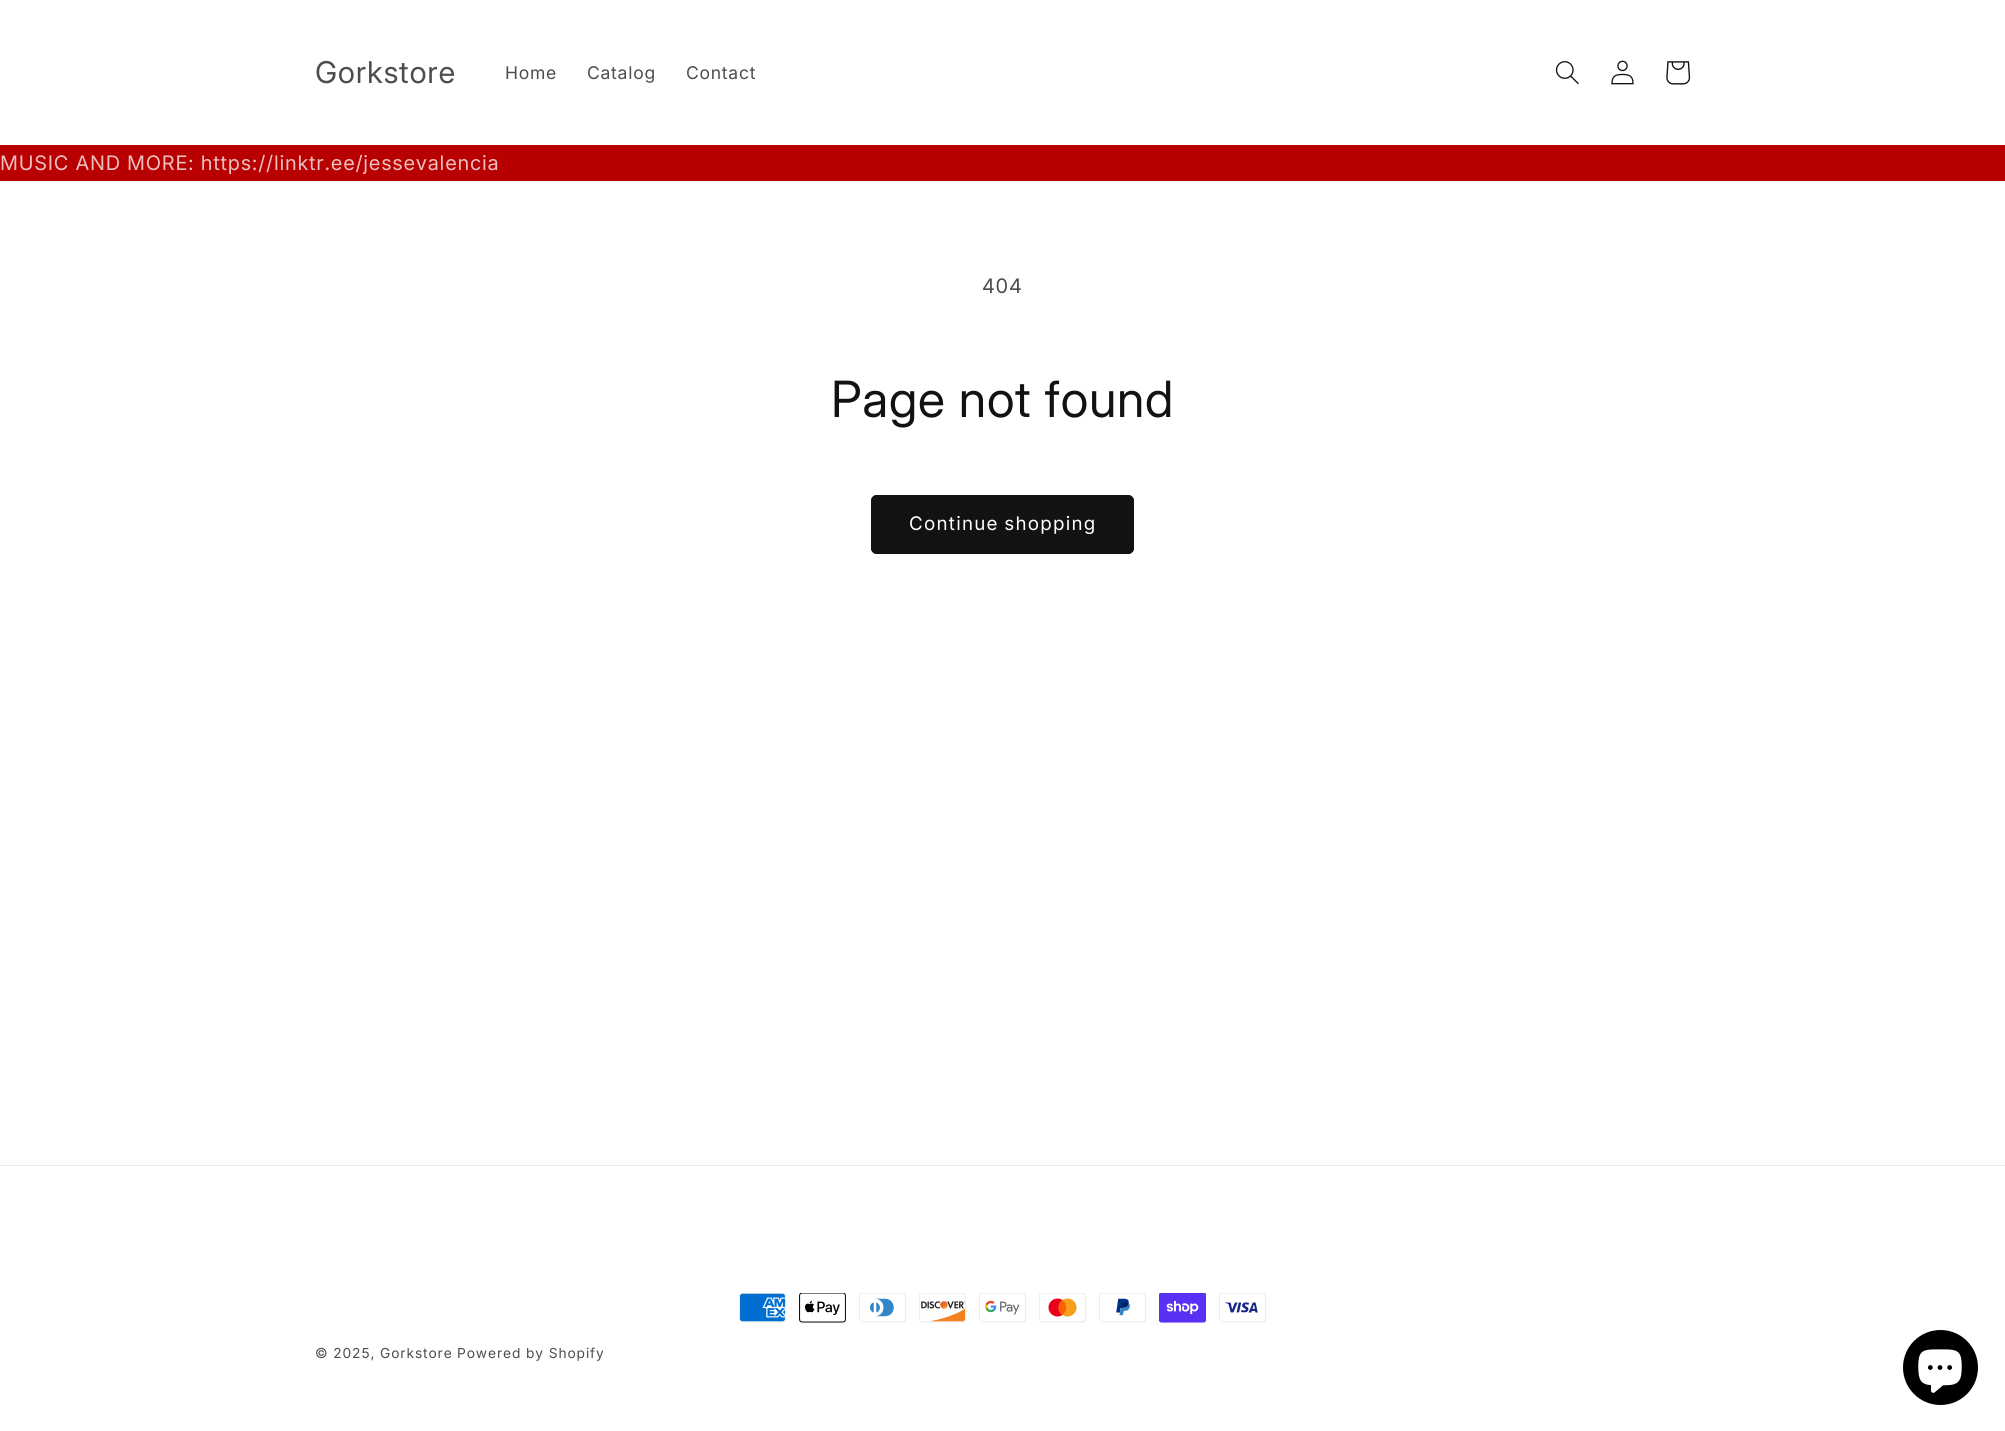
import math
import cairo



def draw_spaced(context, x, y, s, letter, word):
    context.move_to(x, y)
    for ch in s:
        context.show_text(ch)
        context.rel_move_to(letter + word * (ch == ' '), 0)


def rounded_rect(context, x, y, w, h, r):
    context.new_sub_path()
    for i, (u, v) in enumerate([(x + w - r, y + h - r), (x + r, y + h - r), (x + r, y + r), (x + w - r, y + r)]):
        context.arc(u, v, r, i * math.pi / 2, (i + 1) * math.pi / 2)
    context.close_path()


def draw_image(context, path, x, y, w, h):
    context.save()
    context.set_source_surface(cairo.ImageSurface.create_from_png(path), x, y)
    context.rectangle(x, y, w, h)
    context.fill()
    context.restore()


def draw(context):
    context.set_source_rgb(1, 1, 1)
    context.paint()
    draw_image(context, "images/1.png", 1555, 61, 24, 24)
    draw_image(context, "images/2.png", 1611, 60, 23, 25)
    draw_image(context, "images/3.png", 1666, 61, 25, 24)
    context.set_source_rgb(185 / 255, 0, 0)
    context.rectangle(0, 145, 2005, 36)
    context.fill()
    context.set_source_rgb(18 / 255, 18 / 255, 18 / 255)
    rounded_rect(context, 871, 495, 263, 59, 6)
    context.fill()
    rounded_rect(context, 871.5, 495.5, 262, 58, 5.5)
    context.set_line_width(1)
    context.stroke()
    context.set_source_rgb(236 / 255, 236 / 255, 236 / 255)
    context.rectangle(0, 1165, 2005, 1)
    context.fill()
    draw_image(context, "images/4.png", 739, 1293, 47, 30)
    draw_image(context, "images/5.png", 799, 1293, 47, 30)
    draw_image(context, "images/6.png", 859, 1293, 47, 30)
    draw_image(context, "images/7.png", 919, 1293, 47, 30)
    draw_image(context, "images/8.png", 979, 1293, 47, 30)
    draw_image(context, "images/9.png", 1039, 1293, 47, 30)
    draw_image(context, "images/10.png", 1099, 1293, 47, 30)
    draw_image(context, "images/11.png", 1159, 1293, 47, 30)
    draw_image(context, "images/12.png", 1219, 1293, 47, 30)
    context.set_source_rgb(0, 0, 0)
    context.arc(1940.5, 1367.5, 37.5, 0, 2 * math.pi)
    context.fill()
    draw_image(context, "images/13.png", 1918, 1349, 44, 44)
    context.select_font_face("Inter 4")
    context.set_font_size(30)
    context.set_source_rgb(77 / 255, 77 / 255, 77 / 255)
    draw_spaced(context, 315, 83, "Gorkstore", 0.75, 0)
    context.select_font_face("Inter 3")
    context.set_font_size(17.5)
    draw_spaced(context, 505, 79, "Home", 0.75, 0)
    draw_spaced(context, 587, 79, "Catalog", 0.75, 0)
    draw_spaced(context, 686, 79, "Contact", 0.75, 0)
    context.select_font_face("Inter")
    context.set_font_size(20)
    context.set_source_rgb(238 / 255, 191 / 255, 191 / 255)
    draw_spaced(context, 0, 170, "MUSIC AND MORE: https://linktr.ee/jessevalencia", 0.75, 0)
    context.set_source_rgb(77 / 255, 77 / 255, 77 / 255)
    draw_spaced(context, 982, 293, "404", 0.75, 0)
    context.select_font_face("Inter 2")
    context.set_font_size(50)
    context.set_source_rgb(18 / 255, 18 / 255, 18 / 255)
    draw_spaced(context, 831, 417, "Page not found", 0.75, 0)
    context.select_font_face("Inter 3")
    context.set_font_size(18.75)
    context.set_source_rgb(1, 1, 1)
    draw_spaced(context, 909, 530, "Continue shopping", 1.25, -1)
    context.set_font_size(13.75)
    context.set_source_rgb(77 / 255, 77 / 255, 77 / 255)
    draw_spaced(context, 315, 1358, "© 2025, Gorkstore", 0.9, 0)
    draw_spaced(context, 457, 1358, "Powered by Shopify", 0.9, 0)


surface = cairo.ImageSurface(cairo.Format.RGB24, 2005, 1431)
context = cairo.Context(surface)
options = cairo.FontOptions()
options.set_hint_metrics(cairo.HintMetrics.OFF)
options.set_hint_style(cairo.HintStyle.NONE)
context.set_font_options(options)
context.set_miter_limit(4)
draw(context)
surface.write_to_png("out.png")
